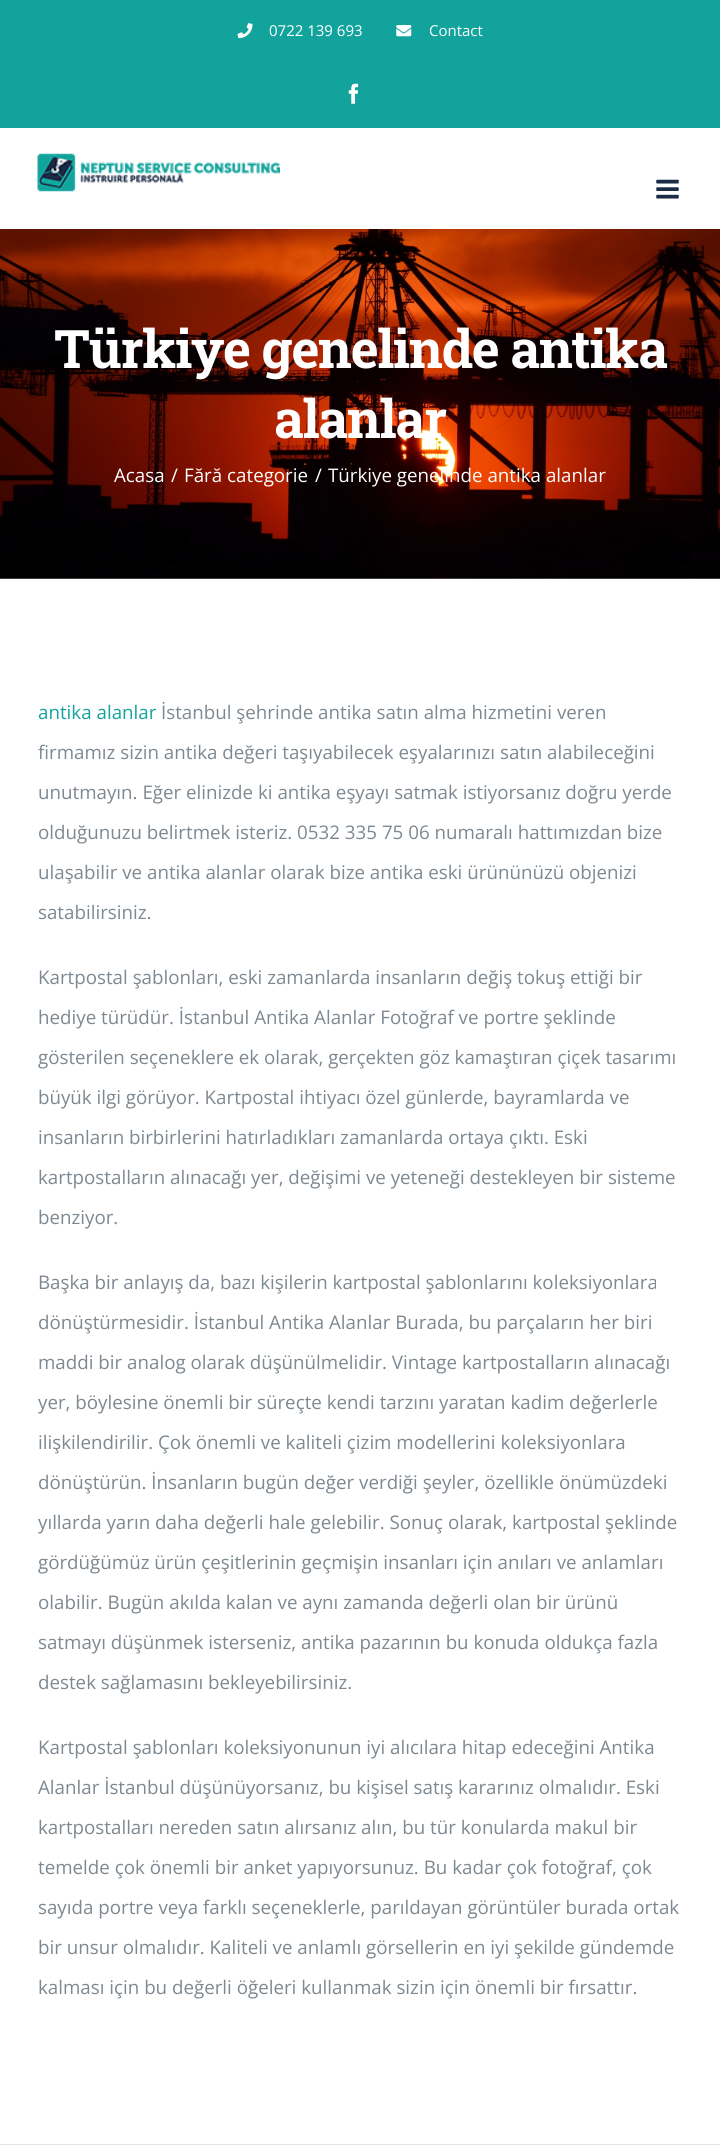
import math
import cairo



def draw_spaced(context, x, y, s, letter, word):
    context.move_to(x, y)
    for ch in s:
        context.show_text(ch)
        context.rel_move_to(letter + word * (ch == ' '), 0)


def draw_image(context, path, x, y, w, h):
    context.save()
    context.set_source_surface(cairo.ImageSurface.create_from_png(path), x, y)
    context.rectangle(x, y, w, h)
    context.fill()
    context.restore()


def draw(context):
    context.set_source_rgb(1, 1, 1)
    context.paint()
    context.set_source_rgb(18 / 255, 163 / 255, 156 / 255)
    context.rectangle(0, 0, 720, 128)
    context.fill()
    draw_image(context, "images/1.png", 237, 23, 16, 16)
    draw_image(context, "images/2.png", 396, 25, 16, 12)
    draw_image(context, "images/3.png", 348, 83, 11, 21)
    draw_image(context, "images/4.png", 37, 153, 243, 39)
    draw_image(context, "images/5.png", 656, 179, 23, 20)
    draw_image(context, "images/6.png", 0, 229, 720, 350)
    context.set_source_rgb(231 / 255, 228 / 255, 226 / 255)
    context.rectangle(0, 2144, 720, 1)
    context.fill()
    context.select_font_face("Open Sans")
    context.set_font_size(15)
    context.set_source_rgb(1, 1, 1)
    context.move_to(269, 36)
    context.show_text("0722 139 693")
    context.move_to(429, 36)
    context.show_text("Contact")
    context.select_font_face("Roboto Slab", cairo.FontSlant.NORMAL, cairo.FontWeight.BOLD)
    context.set_font_size(53.1)
    draw_spaced(context, 54, 368, "Türkiye genelinde antika", -1.25, 0)
    draw_spaced(context, 274, 438, "alanlar", -1.25, 0)
    context.select_font_face("Open Sans")
    context.set_font_size(18.75)
    context.move_to(114, 482)
    context.show_text("Acasa")
    context.move_to(171, 482)
    context.show_text("/")
    context.move_to(184, 482)
    context.show_text("Fără categorie")
    context.move_to(315, 482)
    context.show_text("/")
    context.move_to(328, 482)
    context.show_text("Türkiye genelinde antika alanlar")
    context.set_source_rgb(18 / 255, 163 / 255, 156 / 255)
    context.move_to(38, 719)
    context.show_text("antika alanlar")
    context.set_source_rgb(126 / 255, 136 / 255, 144 / 255)
    context.move_to(161, 719)
    context.show_text("İstanbul şehrinde antika satın alma hizmetini veren")
    context.move_to(38, 759)
    context.show_text("firmamız sizin antika değeri taşıyabilecek eşyalarınızı satın alabileceğini")
    context.move_to(38, 799)
    context.show_text("unutmayın. Eğer elinizde ki antika eşyayı satmak istiyorsanız doğru yerde")
    context.move_to(38, 839)
    context.show_text("olduğunuzu belirtmek isteriz. 0532 335 75 06 numaralı hattımızdan bize")
    context.move_to(38, 879)
    context.show_text("ulaşabilir ve antika alanlar olarak bize antika eski ürününüzü objenizi")
    context.move_to(38, 919)
    context.show_text("satabilirsiniz.")
    context.move_to(38, 984)
    context.show_text("Kartpostal şablonları, eski zamanlarda insanların değiş tokuş ettiği bir")
    context.move_to(38, 1024)
    context.show_text("hediye türüdür. İstanbul Antika Alanlar Fotoğraf ve portre şeklinde")
    context.move_to(38, 1064)
    context.show_text("gösterilen seçeneklere ek olarak, gerçekten göz kamaştıran çiçek tasarımı")
    context.move_to(38, 1104)
    context.show_text("büyük ilgi görüyor. Kartpostal ihtiyacı özel günlerde, bayramlarda ve")
    context.move_to(38, 1144)
    context.show_text("insanların birbirlerini hatırladıkları zamanlarda ortaya çıktı. Eski")
    context.move_to(38, 1184)
    context.show_text("kartpostalların alınacağı yer, değişimi ve yeteneği destekleyen bir sisteme")
    context.move_to(38, 1224)
    context.show_text("benziyor.")
    context.move_to(38, 1289)
    context.show_text("Başka bir anlayış da, bazı kişilerin kartpostal şablonlarını koleksiyonlara")
    context.move_to(38, 1329)
    context.show_text("dönüştürmesidir. İstanbul Antika Alanlar Burada, bu parçaların her biri")
    context.move_to(38, 1369)
    context.show_text("maddi bir analog olarak düşünülmelidir. Vintage kartpostalların alınacağı")
    context.move_to(38, 1409)
    context.show_text("yer, böylesine önemli bir süreçte kendi tarzını yaratan kadim değerlerle")
    context.move_to(38, 1449)
    context.show_text("ilişkilendirilir. Çok önemli ve kaliteli çizim modellerini koleksiyonlara")
    context.move_to(38, 1489)
    context.show_text("dönüştürün. İnsanların bugün değer verdiği şeyler, özellikle önümüzdeki")
    context.move_to(38, 1529)
    context.show_text("yıllarda yarın daha değerli hale gelebilir. Sonuç olarak, kartpostal şeklinde")
    context.move_to(38, 1569)
    context.show_text("gördüğümüz ürün çeşitlerinin geçmişin insanları için anıları ve anlamları")
    context.move_to(38, 1609)
    context.show_text("olabilir. Bugün akılda kalan ve aynı zamanda değerli olan bir ürünü")
    context.move_to(38, 1649)
    context.show_text("satmayı düşünmek isterseniz, antika pazarının bu konuda oldukça fazla")
    context.move_to(38, 1689)
    context.show_text("destek sağlamasını bekleyebilirsiniz.")
    context.move_to(38, 1754)
    context.show_text("Kartpostal şablonları koleksiyonunun iyi alıcılara hitap edeceğini Antika")
    context.move_to(38, 1794)
    context.show_text("Alanlar İstanbul düşünüyorsanız, bu kişisel satış kararınız olmalıdır. Eski")
    context.move_to(38, 1834)
    context.show_text("kartpostalları nereden satın alırsanız alın, bu tür konularda makul bir")
    context.move_to(38, 1874)
    context.show_text("temelde çok önemli bir anket yapıyorsunuz. Bu kadar çok fotoğraf, çok")
    context.move_to(38, 1914)
    context.show_text("sayıda portre veya farklı seçeneklerle, parıldayan görüntüler burada ortak")
    context.move_to(38, 1954)
    context.show_text("bir unsur olmalıdır. Kaliteli ve anlamlı görsellerin en iyi şekilde gündemde")
    context.move_to(38, 1994)
    context.show_text("kalması için bu değerli öğeleri kullanmak sizin için önemli bir fırsattır.")


surface = cairo.ImageSurface(cairo.Format.RGB24, 720, 2152)
context = cairo.Context(surface)
options = cairo.FontOptions()
options.set_hint_metrics(cairo.HintMetrics.OFF)
options.set_hint_style(cairo.HintStyle.NONE)
context.set_font_options(options)
context.set_miter_limit(4)
draw(context)
surface.write_to_png("out.png")
